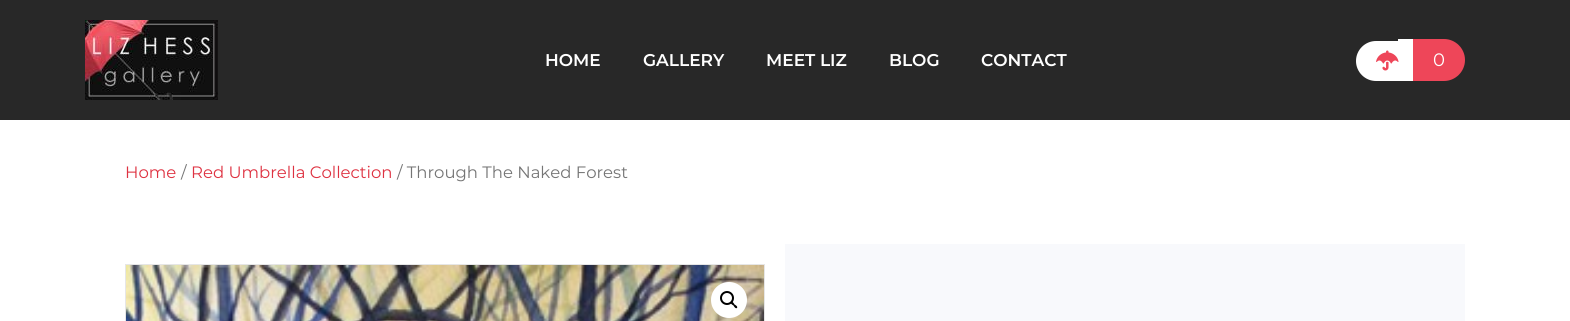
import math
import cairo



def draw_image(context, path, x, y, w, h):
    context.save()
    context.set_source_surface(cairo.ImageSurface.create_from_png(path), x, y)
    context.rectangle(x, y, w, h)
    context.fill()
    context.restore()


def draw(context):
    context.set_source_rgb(40 / 255, 40 / 255, 40 / 255)
    context.paint()
    draw_image(context, "images/1.png", 85, 20, 133, 80)
    context.set_source_rgb(1, 1, 1)
    context.new_path()
    context.move_to(1376, 41)
    context.line_to(1398, 41)
    context.line_to(1398, 81)
    context.line_to(1376, 81)
    context.curve_to(1365, 81, 1356, 72, 1356, 61)
    context.curve_to(1356, 50, 1365, 41, 1376, 41)
    context.close_path()
    context.fill()
    context.rectangle(1398, 39, 15, 42)
    context.fill()
    draw_image(context, "images/2.png", 1376, 50, 23, 21)
    context.set_source_rgb(238 / 255, 70 / 255, 89 / 255)
    context.new_path()
    context.move_to(1413, 39)
    context.line_to(1444, 39)
    context.curve_to(1455.5, 39, 1465, 48.5, 1465, 60)
    context.curve_to(1465, 71.5, 1455.5, 81, 1444, 81)
    context.line_to(1413, 81)
    context.close_path()
    context.fill()
    context.set_source_rgb(1, 1, 1)
    context.rectangle(0, 120, 1570, 201)
    context.fill()
    context.rectangle(125.5, 264.5, 639, 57)
    context.set_source_rgb(230 / 255, 230 / 255, 230 / 255)
    context.set_line_width(1)
    context.stroke()
    draw_image(context, "images/3.png", 126, 265, 638, 56)
    context.set_source_rgb(1, 1, 1)
    context.arc(729, 300, 18, 0, 2 * math.pi)
    context.fill()
    context.arc(727, 298, 6, 0, 2 * math.pi)
    context.set_source_rgb(0, 0, 0)
    context.set_line_width(2)
    context.stroke()
    context.new_path()
    context.move_to(731, 302)
    context.curve_to(732.5, 301, 734, 303.5, 734.5, 304.5)
    context.curve_to(735.5, 305, 738, 306.5, 737, 308)
    context.curve_to(735.5, 309, 734, 306.5, 733.5, 305.5)
    context.curve_to(732.5, 305, 730, 303.5, 731, 302)
    context.close_path()
    context.fill()
    context.set_source_rgb(248 / 255, 249 / 255, 252 / 255)
    context.rectangle(785, 244, 680, 77)
    context.fill()
    context.select_font_face("Montserrat SemiBold")
    context.set_font_size(17)
    context.set_source_rgb(1, 1, 1)
    context.move_to(545, 66)
    context.show_text("HOME")
    context.move_to(643, 66)
    context.show_text("GALLERY")
    context.move_to(766, 66)
    context.show_text("MEET LIZ")
    context.move_to(889, 66)
    context.show_text("BLOG")
    context.move_to(981, 66)
    context.show_text("CONTACT")
    context.select_font_face("Montserrat")
    context.set_font_size(18)
    context.move_to(1433, 66)
    context.show_text("0")
    context.set_font_size(16.5)
    context.set_source_rgb(222 / 255, 50 / 255, 65 / 255)
    context.move_to(125, 178)
    context.show_text("Home")
    context.set_source_rgb(117 / 255, 117 / 255, 117 / 255)
    context.move_to(181, 178)
    context.show_text("/")
    context.set_source_rgb(222 / 255, 50 / 255, 65 / 255)
    context.move_to(191, 178)
    context.show_text("Red Umbrella Collection")
    context.set_source_rgb(117 / 255, 117 / 255, 117 / 255)
    context.move_to(397, 178)
    context.show_text("/ Through The Naked Forest")


surface = cairo.ImageSurface(cairo.Format.RGB24, 1570, 321)
context = cairo.Context(surface)
options = cairo.FontOptions()
options.set_hint_metrics(cairo.HintMetrics.OFF)
options.set_hint_style(cairo.HintStyle.NONE)
context.set_font_options(options)
context.set_miter_limit(4)
draw(context)
surface.write_to_png("out.png")
